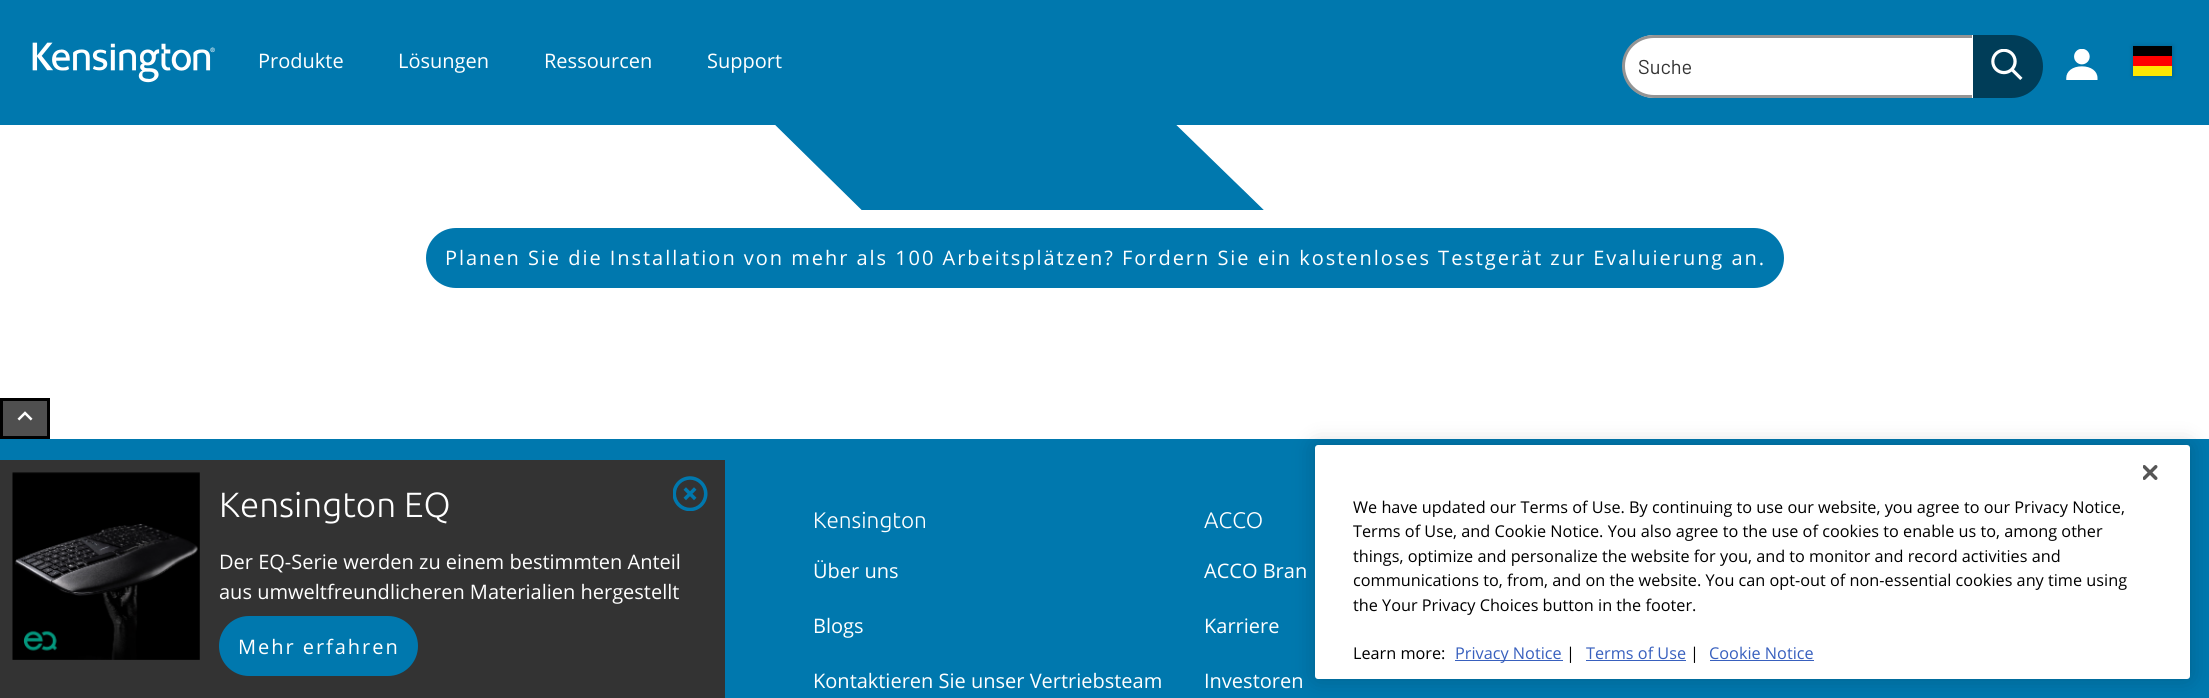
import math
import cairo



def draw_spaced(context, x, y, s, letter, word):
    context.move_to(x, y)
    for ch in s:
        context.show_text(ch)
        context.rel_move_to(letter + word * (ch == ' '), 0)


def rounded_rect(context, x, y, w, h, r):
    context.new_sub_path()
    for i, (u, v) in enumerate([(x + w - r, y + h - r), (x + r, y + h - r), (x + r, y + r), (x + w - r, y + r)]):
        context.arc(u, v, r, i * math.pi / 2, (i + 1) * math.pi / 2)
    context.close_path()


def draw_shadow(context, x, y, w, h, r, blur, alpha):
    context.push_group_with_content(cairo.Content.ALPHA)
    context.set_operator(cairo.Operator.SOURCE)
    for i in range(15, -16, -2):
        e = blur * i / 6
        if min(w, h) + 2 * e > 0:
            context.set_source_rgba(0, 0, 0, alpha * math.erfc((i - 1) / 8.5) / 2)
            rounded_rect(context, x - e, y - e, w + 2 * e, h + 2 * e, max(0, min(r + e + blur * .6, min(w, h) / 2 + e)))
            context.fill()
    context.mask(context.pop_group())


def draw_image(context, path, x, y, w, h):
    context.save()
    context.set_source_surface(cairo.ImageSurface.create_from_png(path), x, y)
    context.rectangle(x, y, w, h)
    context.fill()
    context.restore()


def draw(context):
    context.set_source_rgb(1, 1, 1)
    context.paint()
    context.set_source_rgb(0, 120 / 255, 174 / 255)
    context.rectangle(0, 0, 2209, 125)
    context.fill()
    draw_image(context, "images/1.png", 32, 42, 183, 41)
    context.set_source_rgb(1, 1, 1)
    context.new_path()
    context.move_to(1654.5, 35)
    context.line_to(1973, 35)
    context.line_to(1973, 98)
    context.line_to(1654.5, 98)
    context.curve_to(1637, 98, 1623, 84, 1623, 66.5)
    context.curve_to(1623, 49, 1637, 35, 1654.5, 35)
    context.close_path()
    context.fill()
    context.set_source_rgb(148 / 255, 148 / 255, 148 / 255)
    context.set_fill_rule(cairo.FillRule.EVEN_ODD)
    context.new_path()
    context.move_to(1654, 35)
    context.line_to(1972, 35)
    context.line_to(1972, 98)
    context.line_to(1654, 98)
    context.curve_to(1636, 98, 1622, 84, 1622, 66)
    context.curve_to(1622, 49, 1636, 35, 1654, 35)
    context.close_path()
    context.move_to(1654, 38)
    context.line_to(1972, 38)
    context.line_to(1972, 95)
    context.line_to(1654, 95)
    context.curve_to(1638, 95, 1625, 82, 1625, 66)
    context.curve_to(1625, 50, 1638, 38, 1654, 38)
    context.close_path()
    context.fill()
    context.set_source_rgb(0, 61 / 255, 88 / 255)
    context.new_path()
    context.move_to(1973, 35)
    context.line_to(2011.5, 35)
    context.curve_to(2029, 35, 2043, 49, 2043, 66.5)
    context.curve_to(2043, 84, 2029, 98, 2011.5, 98)
    context.line_to(1973, 98)
    context.close_path()
    context.fill()
    draw_image(context, "images/2.png", 1991, 49, 32, 31)
    draw_image(context, "images/3.png", 2066, 49, 32, 31)
    context.set_source_rgb(0, 0, 0)
    draw_shadow(context, 2133, 46, 40, 30, 0, 2.5, 0.18)
    context.set_source_rgb(0, 0, 0)
    context.rectangle(2133, 46, 39, 10)
    context.fill()
    context.set_source_rgb(1, 0, 0)
    context.rectangle(2133, 56, 39, 10)
    context.fill()
    context.set_source_rgb(1, 230 / 255, 0)
    context.rectangle(2133, 66, 39, 10)
    context.fill()
    draw_image(context, "images/4.png", 775, 125, 489, 85)
    context.set_source_rgb(0, 120 / 255, 174 / 255)
    rounded_rect(context, 426, 228, 1358, 60, 30)
    context.fill()
    context.set_source_rgb(79 / 255, 79 / 255, 79 / 255)
    context.rectangle(1.5, 399.5, 47, 38)
    context.fill_preserve()
    context.set_source_rgb(0, 0, 0)
    context.set_line_width(3)
    context.stroke()
    draw_image(context, "images/5.png", 17, 411, 16, 10)
    context.set_source_rgb(0, 120 / 255, 174 / 255)
    context.rectangle(0, 439, 2209, 259)
    context.fill()
    context.set_source_rgb(51 / 255, 51 / 255, 51 / 255)
    context.rectangle(0, 460, 725, 238)
    context.fill()
    draw_image(context, "images/6.png", 12, 472, 188, 188)
    context.set_source_rgb(0, 120 / 255, 174 / 255)
    rounded_rect(context, 219, 616, 199, 60, 30)
    context.fill()
    draw_image(context, "images/7.png", 673, 476, 35, 35)
    context.set_source_rgb(0, 0, 0)
    draw_shadow(context, 1315, 445, 875, 234, 3, 11, 0.2)
    context.set_source_rgb(1, 1, 1)
    rounded_rect(context, 1315, 445, 875, 234, 3)
    context.fill()
    draw_image(context, "images/8.png", 2143, 465, 15, 15)
    context.set_source_rgb(56 / 255, 96 / 255, 190 / 255)
    context.rectangle(1455, 660, 108, 1)
    context.fill()
    context.rectangle(1586, 660, 100, 1)
    context.fill()
    context.rectangle(1710, 660, 104, 1)
    context.fill()
    context.select_font_face("Open Sans")
    context.set_font_size(20)
    context.set_source_rgb(1, 1, 1)
    context.move_to(258, 68)
    context.show_text("Produkte")
    context.move_to(398, 68)
    context.show_text("Lösungen")
    context.move_to(544, 68)
    context.show_text("Ressourcen")
    context.move_to(707, 68)
    context.show_text("Support")
    context.select_font_face("Barlow")
    context.set_source_rgb(51 / 255, 51 / 255, 51 / 255)
    context.move_to(1638, 74)
    context.show_text("Suche")
    context.select_font_face("Open Sans")
    context.set_source_rgb(1, 1, 1)
    draw_spaced(context, 445, 265, "Planen Sie die Installation von mehr als 100 Arbeitsplätzen? Fordern Sie ein kostenloses Testgerät zur Evaluierung an.", 1.96, 0)
    context.select_font_face("Ubuntu Light")
    context.set_font_size(35)
    context.move_to(219, 517)
    context.show_text("Kensington EQ")
    context.select_font_face("Open Sans")
    context.set_font_size(20)
    context.move_to(219, 569)
    context.show_text("Der EQ-Serie werden zu einem bestimmten Anteil")
    context.move_to(219, 599)
    context.show_text("aus umweltfreundlicheren Materialien hergestellt")
    draw_spaced(context, 238, 654, "Mehr erfahren", 1.96, 0)
    context.select_font_face("Ubuntu Light")
    context.set_font_size(22.5)
    context.move_to(813, 528)
    context.show_text("Kensington")
    context.select_font_face("Open Sans")
    context.set_font_size(20)
    context.move_to(813, 578)
    context.show_text("Über uns")
    context.move_to(813, 633)
    context.show_text("Blogs")
    context.move_to(813, 688)
    context.show_text("Kontaktieren Sie unser Vertriebsteam")
    context.select_font_face("Ubuntu Light")
    context.set_font_size(22.5)
    context.move_to(1204, 528)
    context.show_text("ACCO")
    context.select_font_face("Open Sans")
    context.set_font_size(20)
    context.move_to(1204, 578)
    context.show_text("ACCO Bran")
    context.move_to(1204, 633)
    context.show_text("Karriere")
    context.move_to(1204, 688)
    context.show_text("Investoren")
    context.set_font_size(16.25)
    context.set_source_rgb(0, 0, 0)
    context.move_to(1353, 513)
    context.show_text("We have updated our Terms of Use. By continuing to use our website, you agree to our Privacy Notice,")
    context.move_to(1353, 537)
    context.show_text("Terms of Use, and Cookie Notice. You also agree to the use of cookies to enable us to, among other")
    context.move_to(1353, 562)
    context.show_text("things, optimize and personalize the website for you, and to monitor and record activities and")
    context.move_to(1353, 586)
    context.show_text("communications to, from, and on the website. You can opt-out of non-essential cookies any time using")
    context.move_to(1353, 611)
    context.show_text("the Your Privacy Choices button in the footer.")
    context.move_to(1353, 659)
    context.show_text("Learn more:")
    context.set_source_rgb(56 / 255, 96 / 255, 190 / 255)
    context.move_to(1455, 659)
    context.show_text("Privacy Notice")
    context.set_source_rgb(0, 0, 0)
    context.move_to(1566, 659)
    context.show_text("|")
    context.set_source_rgb(56 / 255, 96 / 255, 190 / 255)
    context.move_to(1586, 659)
    context.show_text("Terms of Use")
    context.set_source_rgb(0, 0, 0)
    context.move_to(1690, 659)
    context.show_text("|")
    context.set_source_rgb(56 / 255, 96 / 255, 190 / 255)
    context.move_to(1709, 659)
    context.show_text("Cookie Notice")


surface = cairo.ImageSurface(cairo.Format.RGB24, 2209, 698)
context = cairo.Context(surface)
options = cairo.FontOptions()
options.set_hint_metrics(cairo.HintMetrics.OFF)
options.set_hint_style(cairo.HintStyle.NONE)
context.set_font_options(options)
context.set_miter_limit(4)
draw(context)
surface.write_to_png("out.png")
